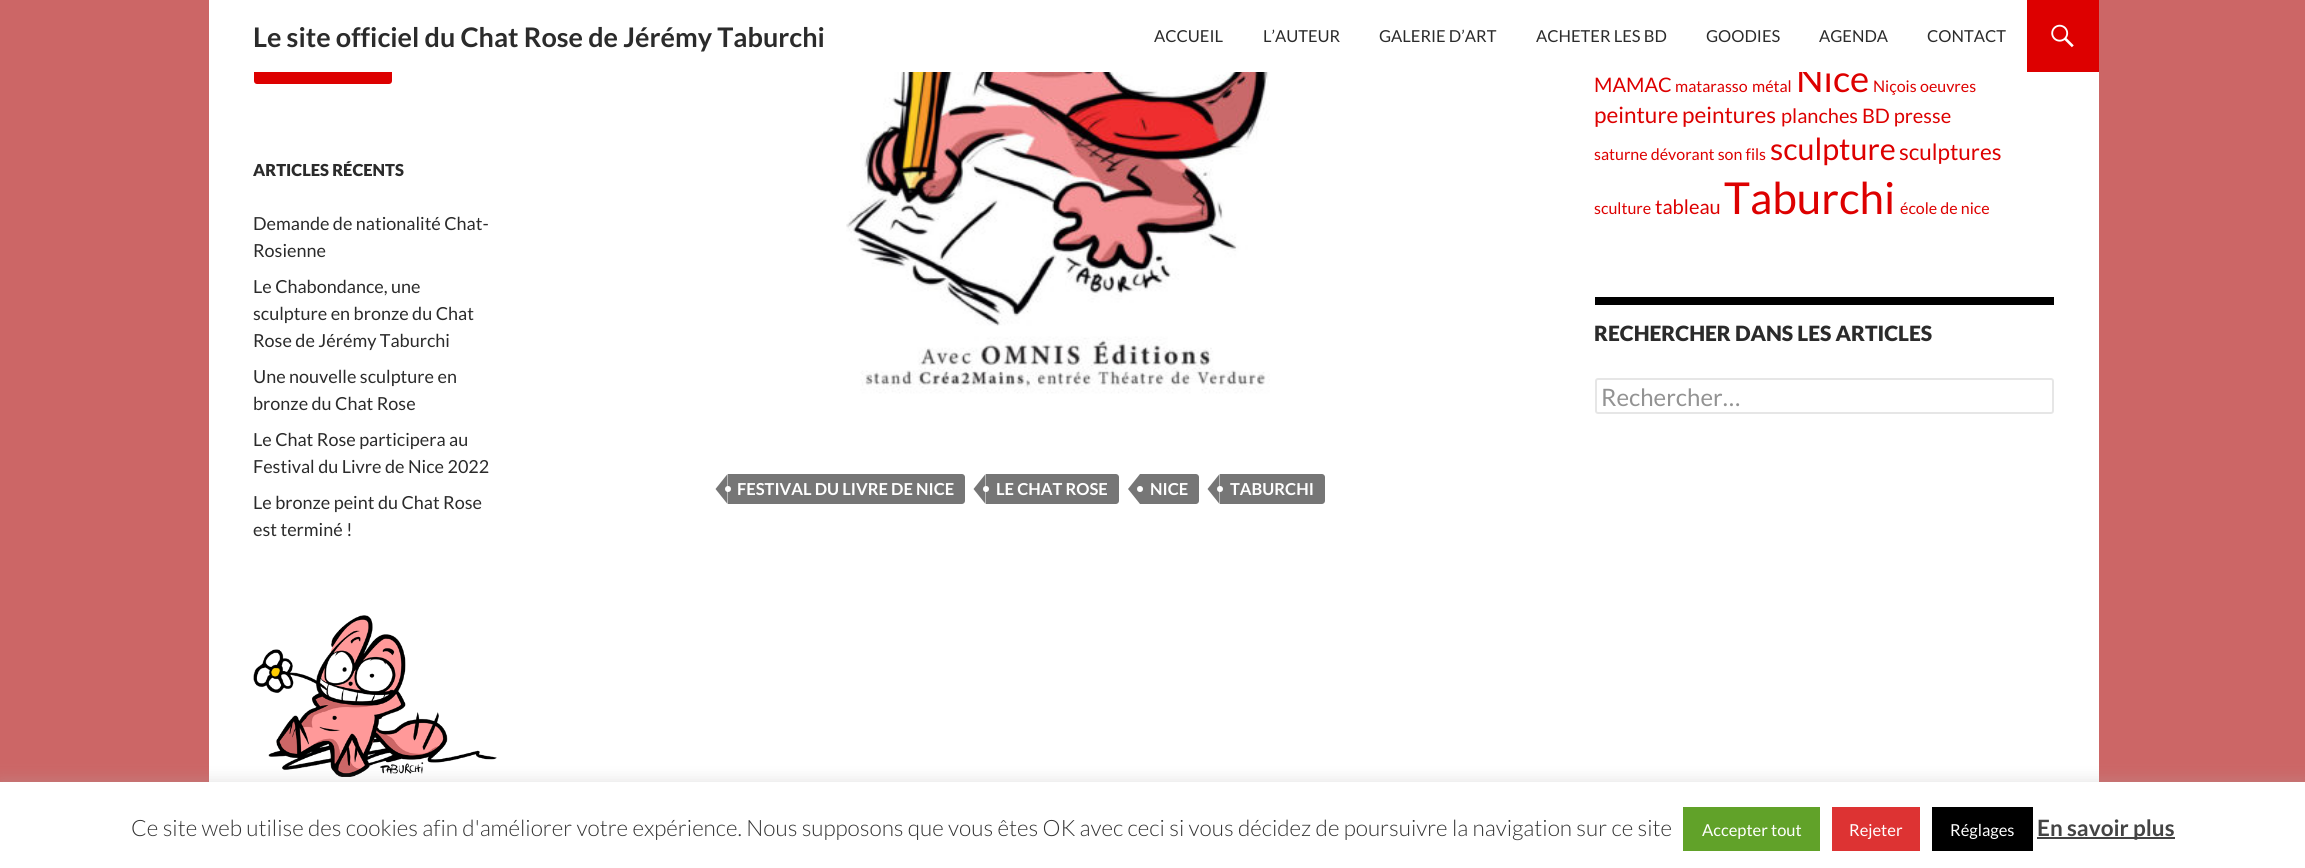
import math
import cairo



def rounded_rect(context, x, y, w, h, r):
    context.new_sub_path()
    for i, (u, v) in enumerate([(x + w - r, y + h - r), (x + r, y + h - r), (x + r, y + r), (x + w - r, y + r)]):
        context.arc(u, v, r, i * math.pi / 2, (i + 1) * math.pi / 2)
    context.close_path()


def draw_shadow(context, x, y, w, h, r, blur, alpha):
    context.push_group_with_content(cairo.Content.ALPHA)
    context.set_operator(cairo.Operator.SOURCE)
    for i in range(15, -16, -2):
        e = blur * i / 6
        if min(w, h) + 2 * e > 0:
            context.set_source_rgba(0, 0, 0, alpha * math.erfc((i - 1) / 8.5) / 2)
            rounded_rect(context, x - e, y - e, w + 2 * e, h + 2 * e, max(0, min(r + e + blur * .6, min(w, h) / 2 + e)))
            context.fill()
    context.mask(context.pop_group())


def draw_image(context, path, x, y, w, h):
    context.save()
    context.set_source_surface(cairo.ImageSurface.create_from_png(path), x, y)
    context.rectangle(x, y, w, h)
    context.fill()
    context.restore()


def draw(context):
    context.set_source_rgb(204 / 255, 102 / 255, 102 / 255)
    context.paint()
    context.set_source_rgb(1, 1, 1)
    context.rectangle(209, 72, 1890, 710)
    context.fill()
    context.set_source_rgb(221 / 255, 0, 0)
    context.rectangle(2027, 0, 72, 72)
    context.fill()
    draw_image(context, "images/1.png", 2051, 24, 23, 24)
    rounded_rect(context, 254, 48, 138, 36, 3)
    context.fill()
    draw_image(context, "images/2.png", 253, 615, 244, 162)
    draw_image(context, "images/3.png", 846, 72, 424, 322)
    context.set_source_rgb(118 / 255, 118 / 255, 118 / 255)
    context.new_path()
    context.move_to(728, 474)
    context.line_to(962, 474)
    context.curve_to(963.5, 474, 965, 475.5, 965, 477)
    context.line_to(965, 501)
    context.curve_to(965, 502.5, 963.5, 504, 962, 504)
    context.line_to(728, 504)
    context.close_path()
    context.fill()
    context.new_path()
    context.move_to(727.5, 474)
    context.line_to(727.5, 504)
    context.line_to(715.5, 489)
    context.close_path()
    context.fill()
    context.set_source_rgb(1, 1, 1)
    context.arc(728, 489, 3, 0, 2 * math.pi)
    context.fill()
    context.set_source_rgb(118 / 255, 118 / 255, 118 / 255)
    context.new_path()
    context.move_to(986, 474)
    context.line_to(1116, 474)
    context.curve_to(1117.5, 474, 1119, 475.5, 1119, 477)
    context.line_to(1119, 501)
    context.curve_to(1119, 502.5, 1117.5, 504, 1116, 504)
    context.line_to(986, 504)
    context.close_path()
    context.fill()
    context.new_path()
    context.move_to(985.5, 474)
    context.line_to(985.5, 504)
    context.line_to(973.5, 489)
    context.close_path()
    context.fill()
    context.set_source_rgb(1, 1, 1)
    context.arc(986, 489, 3, 0, 2 * math.pi)
    context.fill()
    context.set_source_rgb(118 / 255, 118 / 255, 118 / 255)
    context.new_path()
    context.move_to(1140, 474)
    context.line_to(1196, 474)
    context.curve_to(1197.5, 474, 1199, 475.5, 1199, 477)
    context.line_to(1199, 501)
    context.curve_to(1199, 502.5, 1197.5, 504, 1196, 504)
    context.line_to(1140, 504)
    context.close_path()
    context.fill()
    context.new_path()
    context.move_to(1140, 474)
    context.line_to(1140, 504)
    context.line_to(1128, 489)
    context.close_path()
    context.fill()
    context.set_source_rgb(1, 1, 1)
    context.arc(1140, 489, 3, 0, 2 * math.pi)
    context.fill()
    context.set_source_rgb(118 / 255, 118 / 255, 118 / 255)
    context.new_path()
    context.move_to(1220, 474)
    context.line_to(1322, 474)
    context.curve_to(1323.5, 474, 1325, 475.5, 1325, 477)
    context.line_to(1325, 501)
    context.curve_to(1325, 502.5, 1323.5, 504, 1322, 504)
    context.line_to(1220, 504)
    context.close_path()
    context.fill()
    context.new_path()
    context.move_to(1219.5, 474)
    context.line_to(1219.5, 504)
    context.line_to(1207.5, 489)
    context.close_path()
    context.fill()
    context.set_source_rgb(1, 1, 1)
    context.arc(1220, 489, 3, 0, 2 * math.pi)
    context.fill()
    context.set_source_rgb(0, 0, 0)
    context.rectangle(1595, 297, 459, 8)
    context.fill()
    rounded_rect(context, 1596, 379, 457, 34, 2)
    context.set_source_rgb(230 / 255, 230 / 255, 230 / 255)
    context.stroke()
    context.set_source_rgb(172 / 255, 171 / 255, 171 / 255)
    draw_shadow(context, 0, 780, 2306, 87, 0, 7.5, 0.3)
    context.set_source_rgb(1, 1, 1)
    context.rectangle(0, 782, 2305, 86)
    context.fill()
    context.set_source_rgb(97 / 255, 162 / 255, 41 / 255)
    context.rectangle(1683, 807, 137, 44)
    context.fill()
    context.set_source_rgb(221 / 255, 51 / 255, 51 / 255)
    context.rectangle(1832, 807, 88, 44)
    context.fill()
    context.set_source_rgb(0, 0, 0)
    context.rectangle(1932, 807, 101, 44)
    context.fill()
    context.set_source_rgb(68 / 255, 68 / 255, 68 / 255)
    context.rectangle(2037, 837, 138, 2)
    context.fill()
    context.select_font_face("Lato Black")
    context.set_font_size(16.5)
    context.set_source_rgb(43 / 255, 43 / 255, 43 / 255)
    context.move_to(253, 176)
    context.show_text("ARTICLES RÉCENTS")
    context.select_font_face("Lato")
    context.set_font_size(18)
    context.move_to(253, 230)
    context.show_text("Demande de nationalité Chat-")
    context.move_to(253, 257)
    context.show_text("Rosienne")
    context.move_to(253, 293)
    context.show_text("Le Chabondance, une")
    context.move_to(253, 320)
    context.show_text("sculpture en bronze du Chat")
    context.move_to(253, 347)
    context.show_text("Rose de Jérémy Taburchi")
    context.move_to(253, 383)
    context.show_text("Une nouvelle sculpture en")
    context.move_to(253, 410)
    context.show_text("bronze du Chat Rose")
    context.move_to(253, 446)
    context.show_text("Le Chat Rose participera au")
    context.move_to(253, 473)
    context.show_text("Festival du Livre de Nice 2022")
    context.move_to(253, 509)
    context.show_text("Le bronze peint du Chat Rose")
    context.move_to(253, 536)
    context.show_text("est terminé !")
    context.select_font_face("Lato", cairo.FontSlant.NORMAL, cairo.FontWeight.BOLD)
    context.set_font_size(16.5)
    context.set_source_rgb(1, 1, 1)
    context.move_to(737, 495)
    context.show_text("FESTIVAL DU LIVRE DE NICE")
    context.move_to(996, 495)
    context.show_text("LE CHAT ROSE")
    context.move_to(1150, 495)
    context.show_text("NICE")
    context.move_to(1230, 495)
    context.show_text("TABURCHI")
    context.select_font_face("Lato")
    context.set_font_size(20)
    context.set_source_rgb(221 / 255, 0, 0)
    context.move_to(1594, 92)
    context.show_text("MAMAC")
    context.set_font_size(16)
    context.move_to(1675, 92)
    context.show_text("matarasso")
    context.move_to(1752, 92)
    context.show_text("métal")
    context.set_font_size(36.5)
    context.move_to(1796, 92)
    context.show_text("Nice")
    context.set_source_rgb(1, 1, 1)
    context.rectangle(209, 0, 1818, 72)
    context.fill()
    context.set_font_size(16.5)
    context.set_source_rgb(43 / 255, 43 / 255, 43 / 255)
    context.move_to(1927, 42)
    context.show_text("CONTACT")
    context.move_to(1819, 42)
    context.show_text("AGENDA")
    context.move_to(1706, 42)
    context.show_text("GOODIES")
    context.move_to(1536, 42)
    context.show_text("ACHETER LES BD")
    context.move_to(1379, 42)
    context.show_text("GALERIE D’ART")
    context.move_to(1263, 42)
    context.show_text("L’AUTEUR")
    context.move_to(1154, 42)
    context.show_text("ACCUEIL")
    context.select_font_face("Lato", cairo.FontSlant.NORMAL, cairo.FontWeight.BOLD)
    context.set_font_size(27)
    context.move_to(253, 47)
    context.show_text("Le site officiel du Chat Rose de Jérémy Taburchi")
    context.select_font_face("Lato")
    context.set_font_size(16)
    context.set_source_rgb(221 / 255, 0, 0)
    context.move_to(1873, 92)
    context.show_text("Niçois")
    context.move_to(1920, 92)
    context.show_text("oeuvres")
    context.set_font_size(22.5)
    context.move_to(1594, 123)
    context.show_text("peinture")
    context.move_to(1682, 123)
    context.show_text("peintures")
    context.set_font_size(20)
    context.move_to(1781, 123)
    context.show_text("planches BD presse")
    context.set_font_size(16)
    context.move_to(1594, 160)
    context.show_text("saturne dévorant son fils")
    context.set_font_size(30.5)
    context.move_to(1770, 160)
    context.show_text("sculpture")
    context.set_font_size(22.5)
    context.move_to(1899, 160)
    context.show_text("sculptures")
    context.set_font_size(16)
    context.move_to(1594, 214)
    context.show_text("sculture")
    context.set_font_size(20)
    context.move_to(1655, 214)
    context.show_text("tableau")
    context.set_font_size(44)
    context.move_to(1724, 214)
    context.show_text("Taburchi")
    context.set_font_size(16)
    context.move_to(1900, 214)
    context.show_text("école de nice")
    context.select_font_face("Lato Black")
    context.set_font_size(21)
    context.set_source_rgb(43 / 255, 43 / 255, 43 / 255)
    context.move_to(1594, 341)
    context.show_text("RECHERCHER DANS LES ARTICLES")
    context.select_font_face("Lato")
    context.set_font_size(24)
    context.set_source_rgb(147 / 255, 147 / 255, 147 / 255)
    context.move_to(1601, 406)
    context.show_text("Rechercher…")
    context.select_font_face("Lato Light")
    context.set_font_size(22.5)
    context.set_source_rgb(51 / 255, 51 / 255, 51 / 255)
    context.move_to(131, 836)
    context.show_text("Ce site web utilise des cookies afin d'améliorer votre expérience. Nous supposons que vous êtes OK avec ceci si vous décidez de poursuivre la navigation sur ce site")
    context.select_font_face("Lato")
    context.set_font_size(16.5)
    context.set_source_rgb(1, 1, 1)
    context.move_to(1702, 836)
    context.show_text("Accepter tout")
    context.move_to(1849, 836)
    context.show_text("Rejeter")
    context.move_to(1950, 836)
    context.show_text("Réglages")
    context.select_font_face("Lato", cairo.FontSlant.NORMAL, cairo.FontWeight.BOLD)
    context.set_font_size(22.5)
    context.set_source_rgb(68 / 255, 68 / 255, 68 / 255)
    context.move_to(2037, 836)
    context.show_text("En savoir plus")


surface = cairo.ImageSurface(cairo.Format.RGB24, 2305, 868)
context = cairo.Context(surface)
options = cairo.FontOptions()
options.set_hint_metrics(cairo.HintMetrics.OFF)
options.set_hint_style(cairo.HintStyle.NONE)
context.set_font_options(options)
context.set_miter_limit(4)
draw(context)
surface.write_to_png("out.png")
